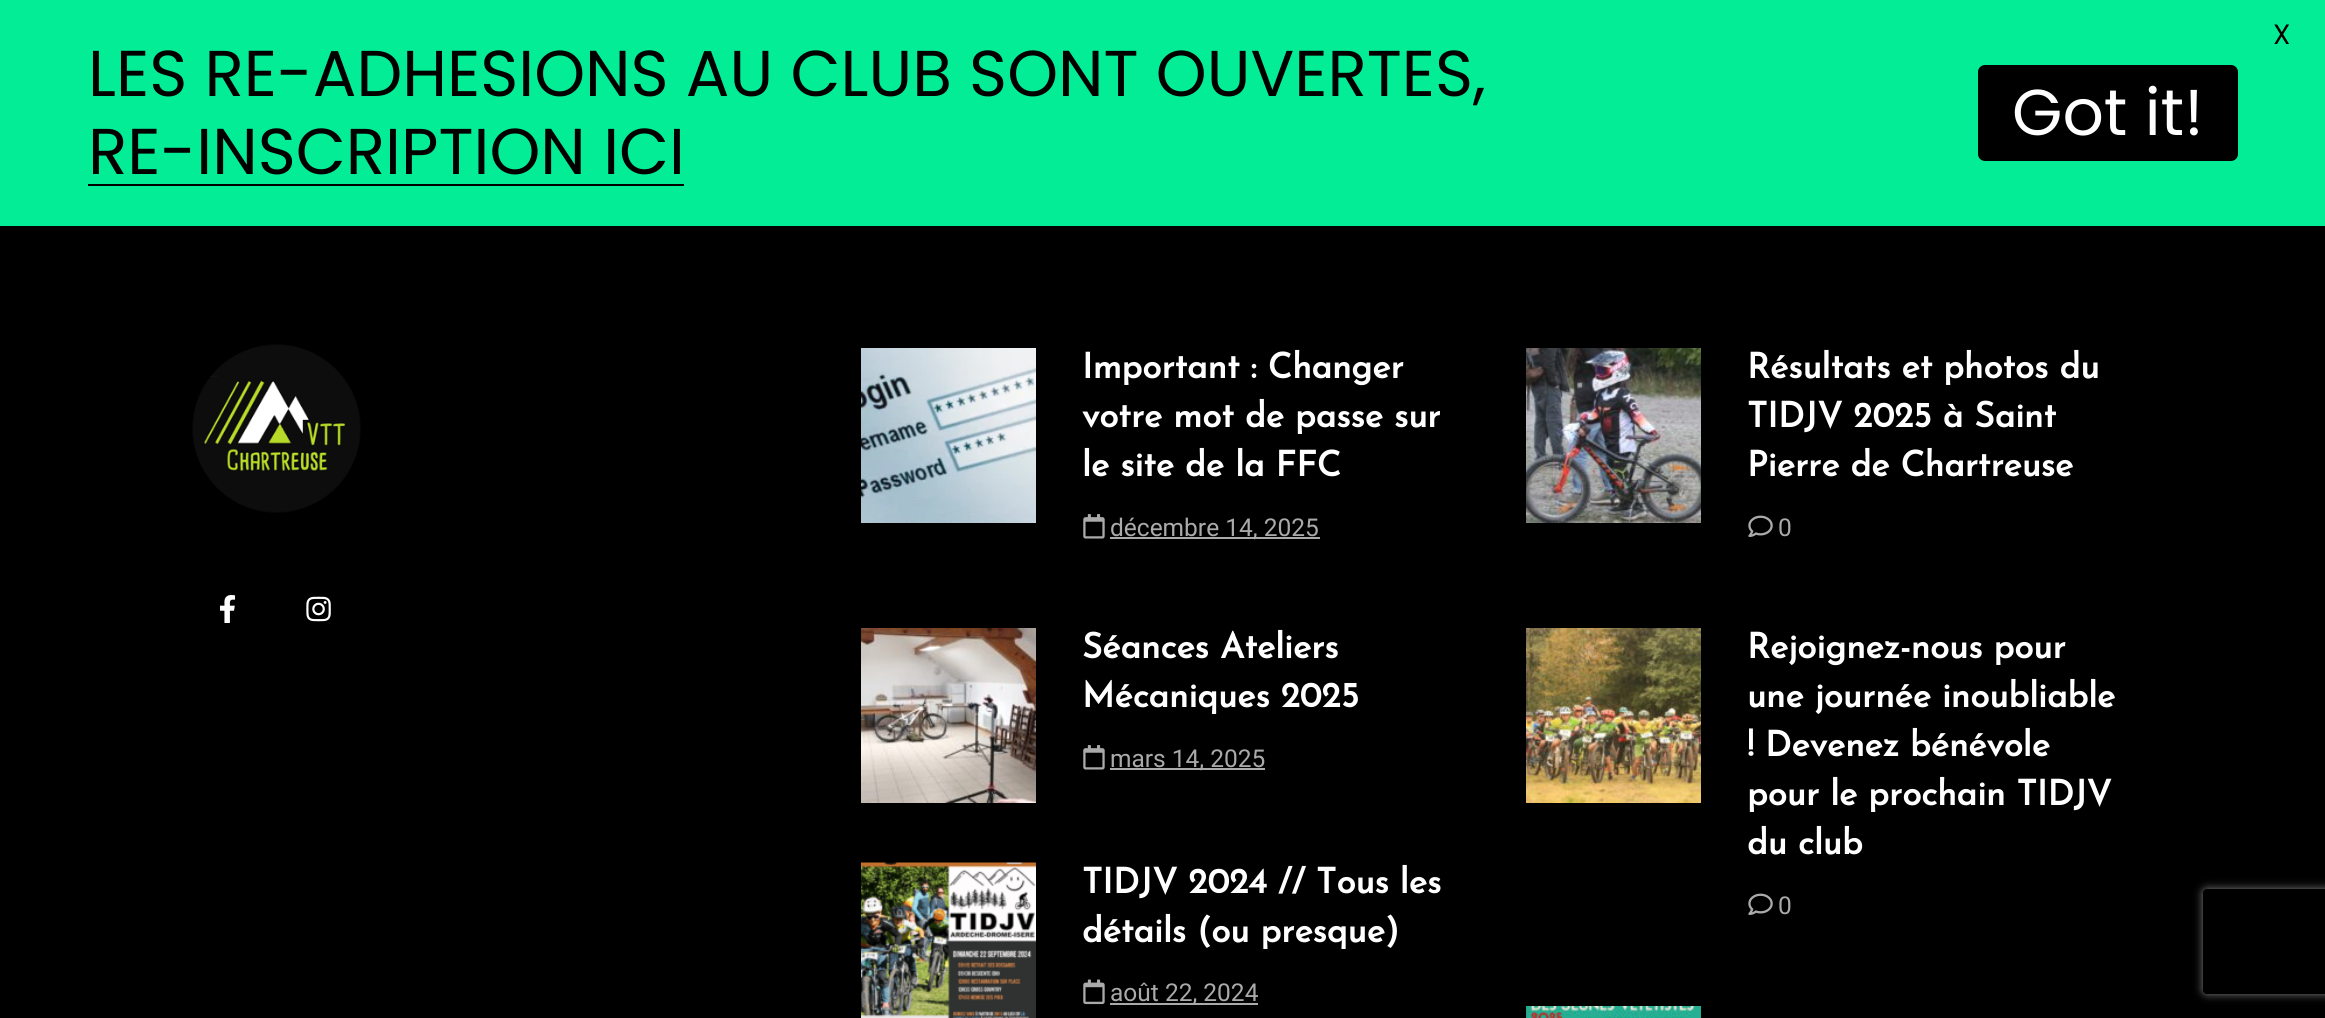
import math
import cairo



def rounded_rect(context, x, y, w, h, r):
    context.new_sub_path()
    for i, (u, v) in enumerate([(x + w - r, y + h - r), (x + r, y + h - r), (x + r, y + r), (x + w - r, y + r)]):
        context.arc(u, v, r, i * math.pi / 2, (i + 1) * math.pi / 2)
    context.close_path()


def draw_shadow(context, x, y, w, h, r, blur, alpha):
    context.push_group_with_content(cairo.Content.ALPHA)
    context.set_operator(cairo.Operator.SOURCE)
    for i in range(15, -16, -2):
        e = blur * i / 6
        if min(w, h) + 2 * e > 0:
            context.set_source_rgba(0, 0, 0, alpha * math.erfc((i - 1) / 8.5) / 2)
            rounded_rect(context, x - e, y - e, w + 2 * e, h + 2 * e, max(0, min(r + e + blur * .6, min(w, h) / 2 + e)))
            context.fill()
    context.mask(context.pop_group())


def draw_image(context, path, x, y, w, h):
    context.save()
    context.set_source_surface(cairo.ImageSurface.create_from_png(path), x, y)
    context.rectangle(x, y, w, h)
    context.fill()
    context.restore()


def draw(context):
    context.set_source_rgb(0, 0, 0)
    context.paint()
    context.set_source_rgb(3 / 255, 237 / 255, 150 / 255)
    context.rectangle(0, 0, 2325, 226)
    context.fill()
    context.set_source_rgb(0, 0, 0)
    context.rectangle(88, 184, 596, 2)
    context.fill()
    rounded_rect(context, 1978, 65, 260, 96, 7)
    context.fill()
    draw_image(context, "images/1.png", 192, 344, 169, 169)
    draw_image(context, "images/2.png", 220, 595, 15, 28)
    draw_image(context, "images/3.png", 306, 596, 25, 26)
    draw_image(context, "images/4.png", 861, 348, 175, 175)
    draw_image(context, "images/5.png", 1083, 514, 22, 25)
    context.set_source_rgb(170 / 255, 170 / 255, 170 / 255)
    context.rectangle(1110, 537, 210, 2)
    context.fill()
    draw_image(context, "images/6.png", 861, 628, 175, 175)
    draw_image(context, "images/5.png", 1083, 745, 22, 25)
    context.rectangle(1110, 768, 155, 2)
    context.fill()
    draw_image(context, "images/7.png", 861, 862, 175, 156)
    draw_image(context, "images/8.png", 1083, 979, 22, 26)
    context.rectangle(1110, 1003, 148, 2)
    context.fill()
    draw_image(context, "images/9.png", 1526, 348, 175, 175)
    draw_image(context, "images/10.png", 1748, 515, 25, 22)
    draw_image(context, "images/11.png", 1526, 628, 175, 175)
    draw_image(context, "images/10.png", 1748, 893, 25, 22)
    draw_image(context, "images/12.png", 1526, 1006, 175, 12)
    context.save()
    context.set_fill_rule(cairo.FillRule.EVEN_ODD)
    context.new_path()
    context.move_to(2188, 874)
    context.line_to(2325, 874)
    context.line_to(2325, 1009)
    context.line_to(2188, 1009)
    context.close_path()
    context.move_to(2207, 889)
    context.line_to(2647, 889)
    context.curve_to(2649, 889, 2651, 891, 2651, 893)
    context.line_to(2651, 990)
    context.curve_to(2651, 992, 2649, 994, 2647, 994)
    context.line_to(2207, 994)
    context.curve_to(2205, 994, 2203, 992, 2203, 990)
    context.line_to(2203, 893)
    context.curve_to(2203, 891, 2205, 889, 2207, 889)
    context.close_path()
    context.clip()
    context.set_source_rgb(128 / 255, 128 / 255, 128 / 255)
    draw_shadow(context, 2203, 889, 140, 105, 4, 4.5, 1)
    context.restore()
    context.select_font_face("Poppins")
    context.set_font_size(28)
    context.set_source_rgb(0, 0, 0)
    context.move_to(2273, 44)
    context.show_text("X")
    context.set_font_size(64.75)
    context.move_to(88, 96)
    context.show_text("LES RE-ADHESIONS AU CLUB SONT OUVERTES,")
    context.move_to(88, 174)
    context.show_text("RE-INSCRIPTION ICI")
    context.set_source_rgb(1, 1, 1)
    context.move_to(2012, 135)
    context.show_text("Got it!")
    context.select_font_face("Josefin Sans", cairo.FontSlant.NORMAL, cairo.FontWeight.BOLD)
    context.set_font_size(35)
    context.move_to(1082, 378)
    context.show_text("Important : Changer")
    context.move_to(1082, 427)
    context.show_text("votre mot de passe sur")
    context.move_to(1082, 476)
    context.show_text("le site de la FFC")
    context.select_font_face("Roboto")
    context.set_font_size(24.5)
    context.set_source_rgb(170 / 255, 170 / 255, 170 / 255)
    context.move_to(1110, 536)
    context.show_text("décembre 14, 2025")
    context.select_font_face("Josefin Sans", cairo.FontSlant.NORMAL, cairo.FontWeight.BOLD)
    context.set_font_size(35)
    context.set_source_rgb(1, 1, 1)
    context.move_to(1082, 658)
    context.show_text("Séances Ateliers")
    context.move_to(1082, 707)
    context.show_text("Mécaniques 2025")
    context.select_font_face("Roboto")
    context.set_font_size(24.5)
    context.set_source_rgb(170 / 255, 170 / 255, 170 / 255)
    context.move_to(1110, 767)
    context.show_text("mars 14, 2025")
    context.select_font_face("Josefin Sans", cairo.FontSlant.NORMAL, cairo.FontWeight.BOLD)
    context.set_font_size(35)
    context.set_source_rgb(1, 1, 1)
    context.move_to(1082, 893)
    context.show_text("TIDJV 2024 // Tous les")
    context.move_to(1082, 942)
    context.show_text("détails (ou presque)")
    context.select_font_face("Roboto")
    context.set_font_size(24.5)
    context.set_source_rgb(170 / 255, 170 / 255, 170 / 255)
    context.move_to(1110, 1001)
    context.show_text("août 22, 2024")
    context.select_font_face("Josefin Sans", cairo.FontSlant.NORMAL, cairo.FontWeight.BOLD)
    context.set_font_size(35)
    context.set_source_rgb(1, 1, 1)
    context.move_to(1747, 378)
    context.show_text("Résultats et photos du")
    context.move_to(1747, 427)
    context.show_text("TIDJV 2025 à Saint")
    context.move_to(1747, 476)
    context.show_text("Pierre de Chartreuse")
    context.select_font_face("Roboto")
    context.set_font_size(24.5)
    context.set_source_rgb(170 / 255, 170 / 255, 170 / 255)
    context.move_to(1778, 536)
    context.show_text("0")
    context.select_font_face("Josefin Sans", cairo.FontSlant.NORMAL, cairo.FontWeight.BOLD)
    context.set_font_size(35)
    context.set_source_rgb(1, 1, 1)
    context.move_to(1747, 658)
    context.show_text("Rejoignez-nous pour")
    context.move_to(1747, 707)
    context.show_text("une journée inoubliable")
    context.move_to(1747, 756)
    context.show_text("! Devenez bénévole")
    context.move_to(1747, 805)
    context.show_text("pour le prochain TIDJV")
    context.move_to(1747, 854)
    context.show_text("du club")
    context.select_font_face("Roboto")
    context.set_font_size(24.5)
    context.set_source_rgb(170 / 255, 170 / 255, 170 / 255)
    context.move_to(1778, 914)
    context.show_text("0")


surface = cairo.ImageSurface(cairo.Format.RGB24, 2325, 1018)
context = cairo.Context(surface)
options = cairo.FontOptions()
options.set_hint_metrics(cairo.HintMetrics.OFF)
options.set_hint_style(cairo.HintStyle.NONE)
context.set_font_options(options)
context.set_miter_limit(4)
draw(context)
surface.write_to_png("out.png")
